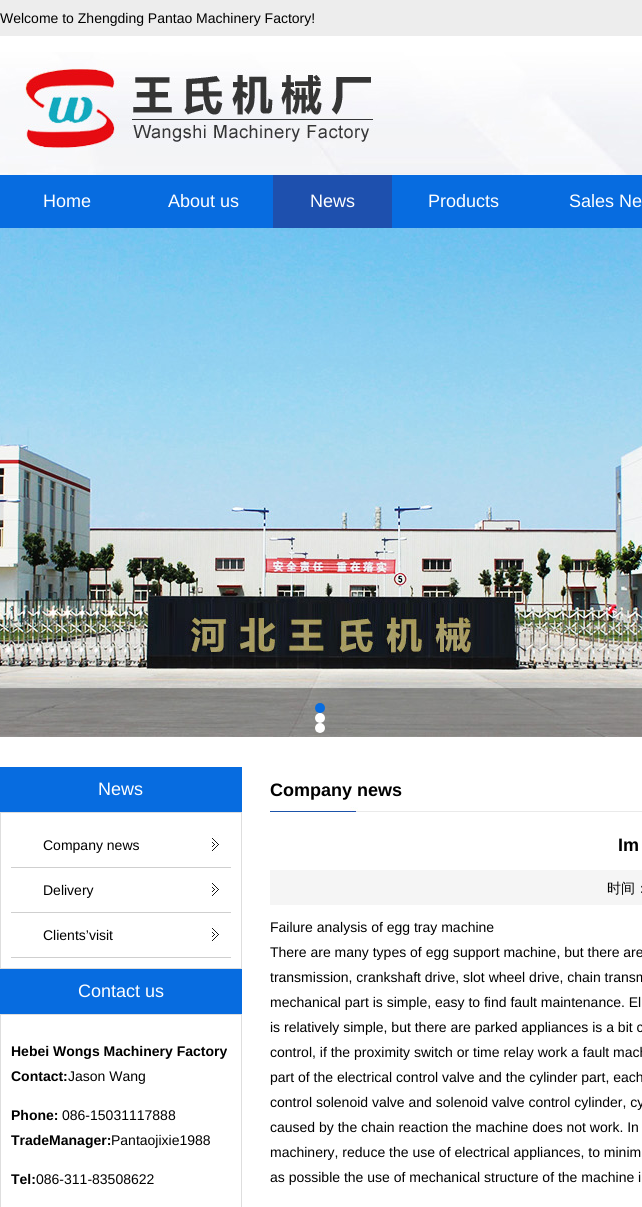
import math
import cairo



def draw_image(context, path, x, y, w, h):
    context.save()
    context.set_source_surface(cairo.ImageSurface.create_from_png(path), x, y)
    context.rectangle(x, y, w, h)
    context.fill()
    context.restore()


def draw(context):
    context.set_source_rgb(1, 1, 1)
    context.paint()
    context.set_source_rgb(237 / 255, 237 / 255, 237 / 255)
    context.rectangle(0, 0, 642, 36)
    context.fill()
    draw_image(context, "images/1.png", 0, 52, 642, 123)
    context.set_source_rgb(7 / 255, 108 / 255, 224 / 255)
    context.rectangle(0, 175, 642, 53)
    context.fill()
    context.set_source_rgb(30 / 255, 80 / 255, 174 / 255)
    context.rectangle(273, 175, 119, 53)
    context.fill()
    draw_image(context, "images/2.png", 0, 228, 642, 509)
    context.set_source_rgb(7 / 255, 108 / 255, 224 / 255)
    context.rectangle(0, 767, 242, 45)
    context.fill()
    context.set_source_rgb(222 / 255, 222 / 255, 222 / 255)
    context.rectangle(0, 812, 242, 157)
    context.fill()
    context.set_source_rgb(1, 1, 1)
    context.rectangle(1, 813, 240, 155)
    context.fill()
    draw_image(context, "images/3.png", 11, 835, 220, 33)
    draw_image(context, "images/3.png", 11, 880, 220, 33)
    draw_image(context, "images/3.png", 11, 925, 220, 33)
    context.set_source_rgb(7 / 255, 108 / 255, 224 / 255)
    context.rectangle(0, 969, 242, 45)
    context.fill()
    context.set_source_rgb(222 / 255, 222 / 255, 222 / 255)
    context.rectangle(0, 1014, 242, 193)
    context.fill()
    context.set_source_rgb(1, 1, 1)
    context.rectangle(1, 1015, 240, 192)
    context.fill()
    draw_image(context, "images/4.png", 270, 807, 372, 5)
    context.set_source_rgb(245 / 255, 245 / 255, 245 / 255)
    context.rectangle(270, 870, 372, 35)
    context.fill()
    context.select_font_face("Liberation Sans")
    context.set_font_size(14)
    context.set_source_rgb(0, 0, 0)
    context.move_to(0, 23)
    context.show_text("Welcome to Zhengding Pantao Machinery Factory!")
    context.set_font_size(18)
    context.set_source_rgb(1, 1, 1)
    context.move_to(43, 207)
    context.show_text("Home")
    context.move_to(168, 207)
    context.show_text("About us")
    context.move_to(310, 207)
    context.show_text("News")
    context.move_to(428, 207)
    context.show_text("Products")
    context.move_to(569, 207)
    context.show_text("Sales Ne")
    context.move_to(98, 795)
    context.show_text("News")
    context.set_font_size(14)
    context.set_source_rgb(0, 0, 0)
    context.move_to(43, 850)
    context.show_text("Company news")
    context.move_to(43, 895)
    context.show_text("Delivery")
    context.move_to(43, 940)
    context.show_text("Clients’visit")
    context.set_font_size(18)
    context.set_source_rgb(1, 1, 1)
    context.move_to(78, 997)
    context.show_text("Contact us")
    context.select_font_face("Liberation Sans", cairo.FontSlant.NORMAL, cairo.FontWeight.BOLD)
    context.set_font_size(14)
    context.set_source_rgb(0, 0, 0)
    context.move_to(11, 1056)
    context.show_text("Hebei Wongs Machinery Factory")
    context.move_to(11, 1081)
    context.show_text("Contact:")
    context.select_font_face("Liberation Sans")
    context.move_to(68, 1081)
    context.show_text("Jason Wang")
    context.select_font_face("Liberation Sans", cairo.FontSlant.NORMAL, cairo.FontWeight.BOLD)
    context.move_to(11, 1120)
    context.show_text("Phone:")
    context.select_font_face("Liberation Sans")
    context.move_to(62, 1120)
    context.show_text("086-15031117888")
    context.select_font_face("Liberation Sans", cairo.FontSlant.NORMAL, cairo.FontWeight.BOLD)
    context.move_to(11, 1145)
    context.show_text("TradeManager:")
    context.select_font_face("Liberation Sans")
    context.move_to(111, 1145)
    context.show_text("Pantaojixie1988")
    context.select_font_face("Liberation Sans", cairo.FontSlant.NORMAL, cairo.FontWeight.BOLD)
    context.move_to(11, 1184)
    context.show_text("Tel:")
    context.select_font_face("Liberation Sans")
    context.move_to(36, 1184)
    context.show_text("086-311-83508622")
    context.select_font_face("Liberation Sans", cairo.FontSlant.NORMAL, cairo.FontWeight.BOLD)
    context.set_font_size(18)
    context.move_to(270, 796)
    context.show_text("Company news")
    context.move_to(618, 851)
    context.show_text("Im")
    context.select_font_face("WenQuanYi Zen Hei Medium")
    context.set_font_size(14)
    context.move_to(607, 893)
    context.show_text("时间：")
    context.select_font_face("Liberation Sans")
    context.move_to(270, 932)
    context.show_text("Failure analysis of egg tray machine")
    context.move_to(270, 957)
    context.show_text("There are many types of egg support machine, but there are")
    context.move_to(270, 982)
    context.show_text("transmission, crankshaft drive, slot wheel drive, chain transm")
    context.move_to(270, 1007)
    context.show_text("mechanical part is simple, easy to find fault maintenance. El")
    context.move_to(270, 1032)
    context.show_text("is relatively simple, but there are parked appliances is a bit c")
    context.move_to(270, 1057)
    context.show_text("control, if the proximity switch or time relay work a fault mach")
    context.move_to(270, 1082)
    context.show_text("part of the electrical control valve and the cylinder part, each")
    context.move_to(270, 1107)
    context.show_text("control solenoid valve and solenoid valve control cylinder, cy")
    context.move_to(270, 1132)
    context.show_text("caused by the chain reaction the machine does not work. In")
    context.move_to(270, 1157)
    context.show_text("machinery, reduce the use of electrical appliances, to minim")
    context.move_to(270, 1182)
    context.show_text("as possible the use of mechanical structure of the machine i")


surface = cairo.ImageSurface(cairo.Format.RGB24, 642, 1207)
context = cairo.Context(surface)
options = cairo.FontOptions()
options.set_hint_metrics(cairo.HintMetrics.OFF)
options.set_hint_style(cairo.HintStyle.NONE)
context.set_font_options(options)
context.set_miter_limit(4)
draw(context)
surface.write_to_png("out.png")
